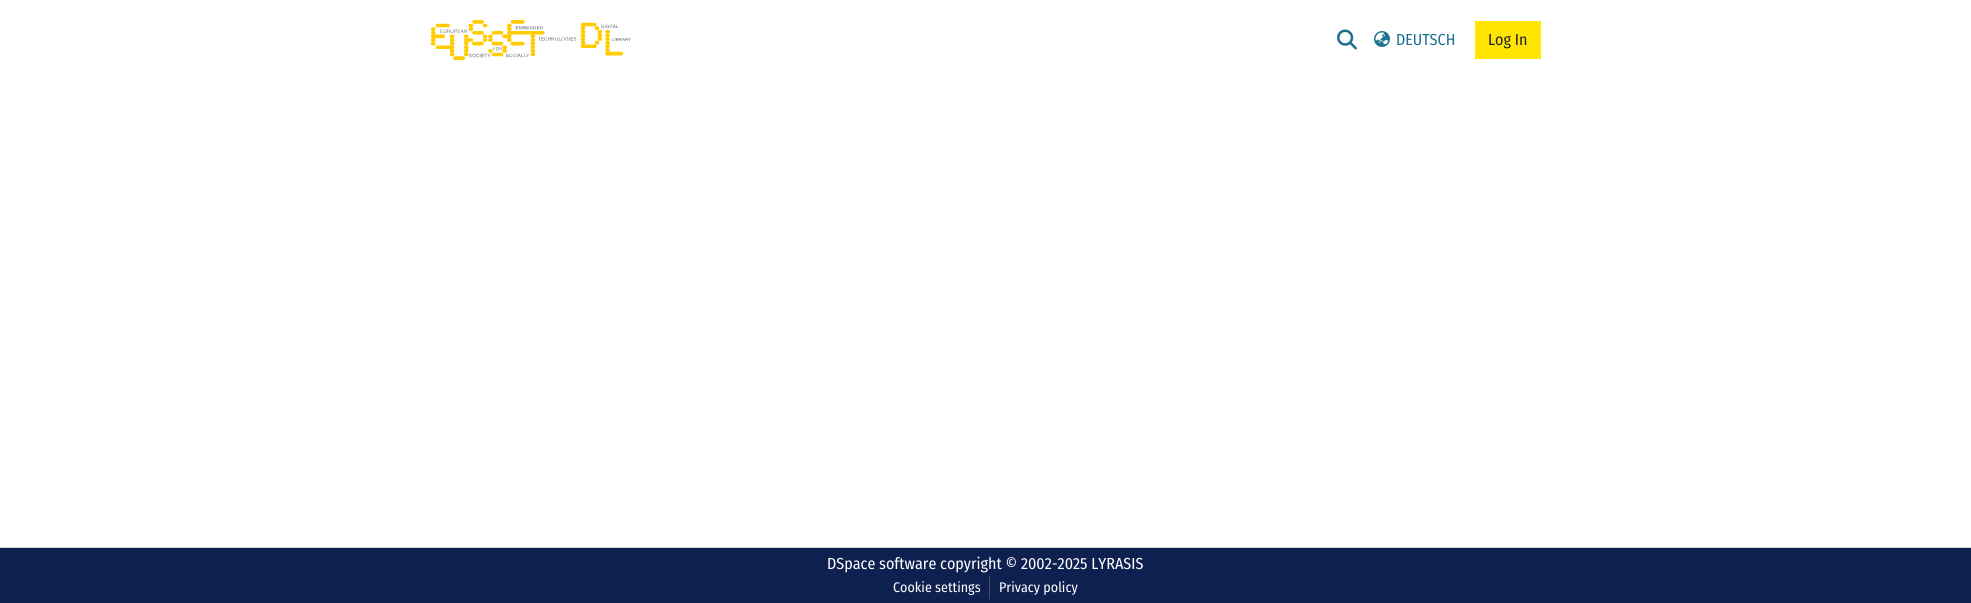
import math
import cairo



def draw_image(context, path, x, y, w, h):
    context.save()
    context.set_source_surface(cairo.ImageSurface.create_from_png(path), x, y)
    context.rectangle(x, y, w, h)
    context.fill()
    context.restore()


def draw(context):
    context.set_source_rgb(1, 1, 1)
    context.paint()
    draw_image(context, "images/1.png", 431, 20, 200, 40)
    draw_image(context, "images/2.png", 1337, 29, 20, 21)
    draw_image(context, "images/3.png", 1374, 31, 16, 16)
    context.set_source_rgb(1, 230 / 255, 0)
    context.rectangle(1475, 21, 66, 38)
    context.fill()
    context.set_source_rgb(14 / 255, 32 / 255, 80 / 255)
    context.rectangle(0, 548, 1971, 55)
    context.fill()
    context.set_source_rgb(206 / 255, 212 / 255, 218 / 255)
    context.rectangle(0, 547, 1971, 1)
    context.fill()
    context.set_source_rgb(73 / 255, 80 / 255, 87 / 255)
    context.rectangle(989, 576, 1, 23)
    context.fill()
    context.select_font_face("Fira Sans Condensed")
    context.set_font_size(16)
    context.set_source_rgb(30 / 255, 111 / 255, 144 / 255)
    context.move_to(1396, 45)
    context.show_text("DEUTSCH")
    context.set_source_rgb(33 / 255, 37 / 255, 41 / 255)
    context.move_to(1488, 45)
    context.show_text("Log In")
    context.set_source_rgb(1, 1, 1)
    context.move_to(827, 569)
    context.show_text("DSpace software copyright © 2002-2025 LYRASIS")
    context.set_font_size(14)
    context.move_to(893, 592)
    context.show_text("Cookie settings")
    context.move_to(999, 592)
    context.show_text("Privacy policy")


surface = cairo.ImageSurface(cairo.Format.RGB24, 1971, 603)
context = cairo.Context(surface)
options = cairo.FontOptions()
options.set_hint_metrics(cairo.HintMetrics.OFF)
options.set_hint_style(cairo.HintStyle.NONE)
context.set_font_options(options)
context.set_miter_limit(4)
draw(context)
surface.write_to_png("out.png")
